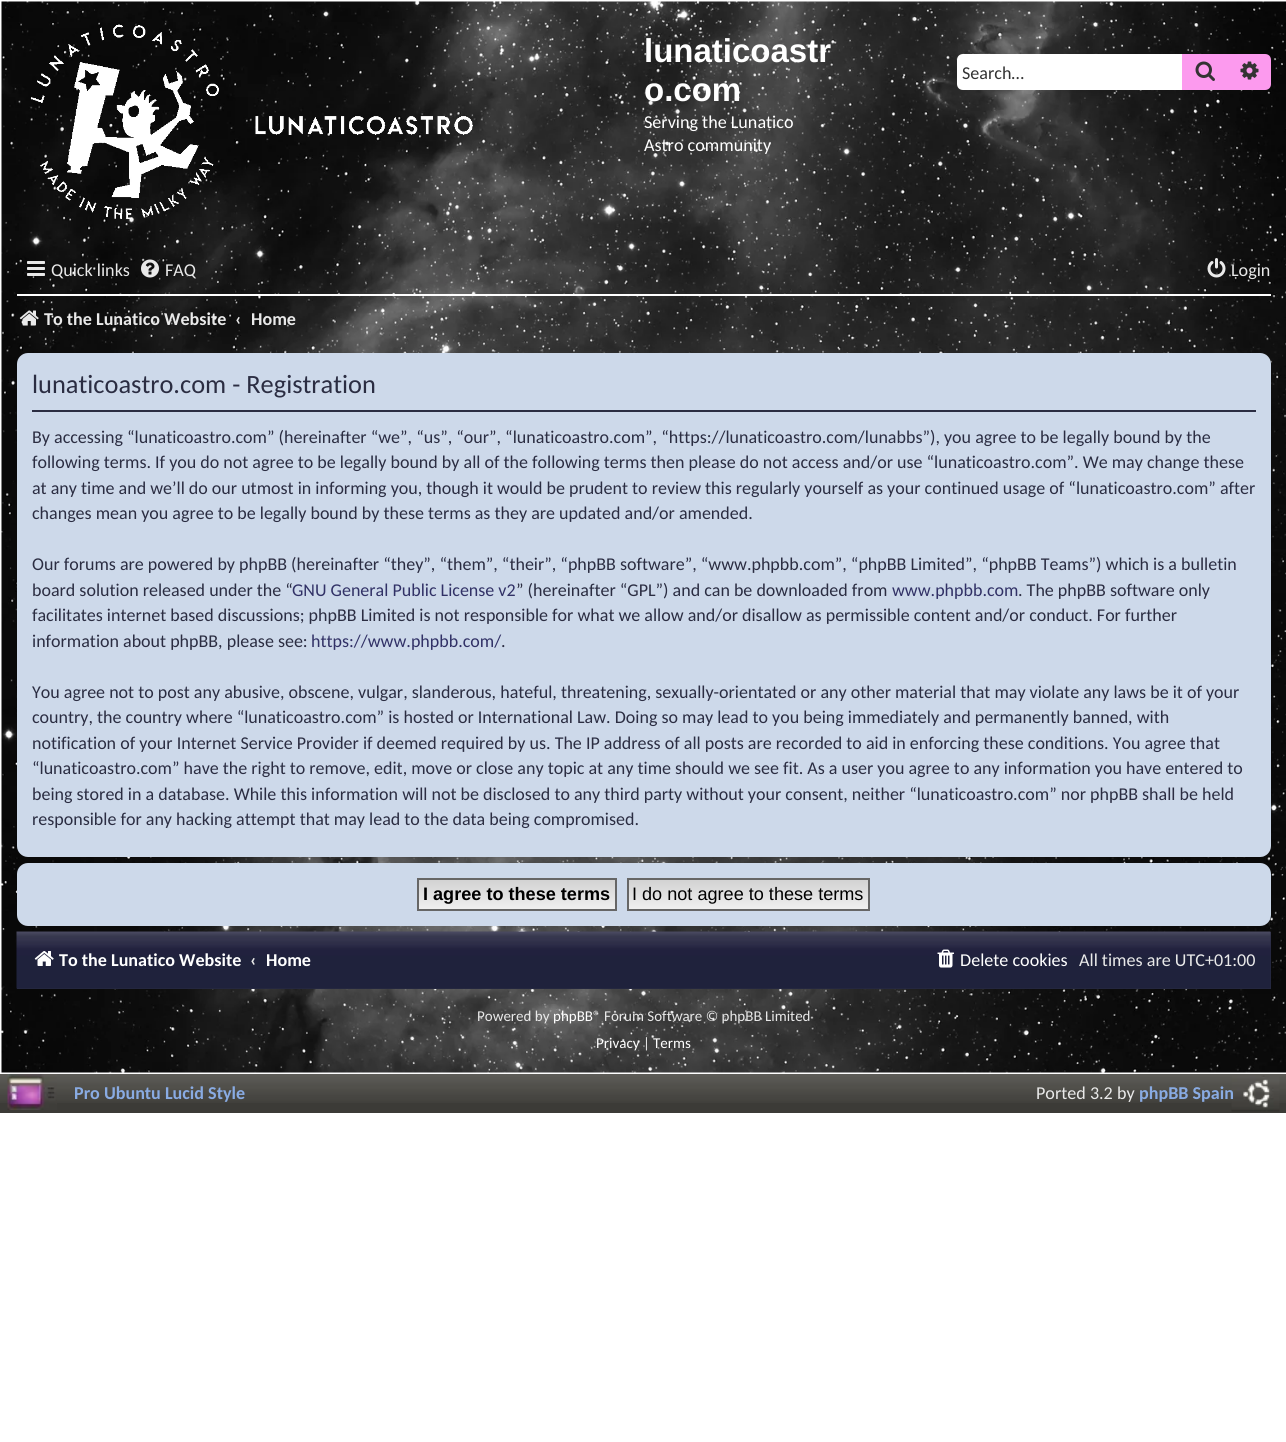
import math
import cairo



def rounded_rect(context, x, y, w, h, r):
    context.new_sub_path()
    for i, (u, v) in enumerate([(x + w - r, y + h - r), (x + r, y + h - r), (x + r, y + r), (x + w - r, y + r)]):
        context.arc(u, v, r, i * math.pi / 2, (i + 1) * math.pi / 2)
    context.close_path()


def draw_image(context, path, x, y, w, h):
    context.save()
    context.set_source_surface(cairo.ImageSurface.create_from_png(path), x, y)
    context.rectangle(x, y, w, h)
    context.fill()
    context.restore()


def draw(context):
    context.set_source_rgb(1, 1, 1)
    context.paint()
    draw_image(context, "images/1.png", 1, 1, 1285, 1072)
    draw_image(context, "images/2.png", 30, 24, 443, 195)
    context.set_source_rgb(1, 1, 1)
    context.new_path()
    context.move_to(963, 54)
    context.line_to(1182, 54)
    context.line_to(1182, 90)
    context.line_to(963, 90)
    context.curve_to(959.5, 90, 957, 87.5, 957, 84)
    context.line_to(957, 60)
    context.curve_to(957, 56.5, 959.5, 54, 963, 54)
    context.close_path()
    context.fill()
    context.set_source_rgb(252 / 255, 154 / 255, 238 / 255)
    context.rectangle(1182, 54, 47, 36)
    context.fill()
    draw_image(context, "images/3.png", 1195, 61, 20, 20)
    context.new_path()
    context.move_to(1230, 55)
    context.line_to(1265, 55)
    context.curve_to(1268, 55, 1270, 57, 1270, 60)
    context.line_to(1270, 84)
    context.curve_to(1270, 87, 1268, 89, 1265, 89)
    context.line_to(1230, 89)
    context.close_path()
    context.fill_preserve()
    context.stroke()
    draw_image(context, "images/4.png", 1240, 61, 19, 19)
    draw_image(context, "images/5.png", 27, 261, 18, 15)
    draw_image(context, "images/6.png", 141, 259, 18, 19)
    draw_image(context, "images/7.png", 1207, 258, 19, 20)
    context.set_source_rgb(1, 1, 1)
    context.rectangle(17, 294, 1254, 2)
    context.fill()
    draw_image(context, "images/8.png", 19, 310, 20, 16)
    context.set_source_rgb(205 / 255, 217 / 255, 234 / 255)
    rounded_rect(context, 17, 353, 1254, 504, 11)
    context.fill()
    context.set_source_rgb(43 / 255, 45 / 255, 66 / 255)
    context.rectangle(32, 410, 1224, 2)
    context.fill()
    context.set_source_rgb(205 / 255, 217 / 255, 234 / 255)
    rounded_rect(context, 17, 863, 1254, 63, 11)
    context.fill()
    gradient = cairo.LinearGradient(517, 879, 517, 909)
    gradient.add_color_stop_rgba(0, 210 / 255, 210 / 255, 210 / 255, 1)
    gradient.add_color_stop_rgba(1, 239 / 255, 239 / 255, 239 / 255, 1)
    context.set_source(gradient)
    context.rectangle(419, 880, 196, 29)
    context.fill()
    context.rectangle(418, 879, 198, 31)
    context.set_source_rgb(102 / 255, 102 / 255, 102 / 255)
    context.stroke()
    gradient = cairo.LinearGradient(749, 879, 749, 909)
    gradient.add_color_stop_rgba(0, 210 / 255, 210 / 255, 210 / 255, 1)
    gradient.add_color_stop_rgba(1, 239 / 255, 239 / 255, 239 / 255, 1)
    context.set_source(gradient)
    context.rectangle(629, 880, 239, 29)
    context.fill()
    context.rectangle(628, 879, 241, 31)
    context.set_source_rgb(102 / 255, 102 / 255, 102 / 255)
    context.stroke()
    context.set_source_rgb(43 / 255, 45 / 255, 66 / 255)
    context.rectangle(17, 932, 1254, 57)
    context.fill()
    draw_image(context, "images/9.png", 16, 931, 1255, 58)
    draw_image(context, "images/10.png", 34, 951, 20, 15)
    draw_image(context, "images/11.png", 937, 949, 17, 19)
    context.set_source_rgb(60 / 255, 59 / 255, 55 / 255)
    context.rectangle(0, 1103, 1286, 10)
    context.fill()
    draw_image(context, "images/12.png", 0, 1074, 1286, 29)
    draw_image(context, "images/13.png", 1231, 1075, 49, 37)
    draw_image(context, "images/14.png", 7, 1074, 50, 36)
    context.select_font_face("Liberation Sans", cairo.FontSlant.NORMAL, cairo.FontWeight.BOLD)
    context.set_font_size(33)
    context.set_source_rgb(1, 1, 1)
    context.move_to(644, 62)
    context.show_text("lunaticoastr")
    context.move_to(644, 101)
    context.show_text("o.com")
    context.select_font_face("Carlito")
    context.set_font_size(18.1)
    context.move_to(644, 128)
    context.show_text("Serving the Lunatico")
    context.move_to(644, 151)
    context.show_text("Astro community")
    context.set_source_rgb(51 / 255, 51 / 255, 51 / 255)
    context.move_to(962, 79)
    context.show_text("Search…")
    context.set_source_rgb(233 / 255, 233 / 255, 233 / 255)
    context.move_to(51, 276)
    context.show_text("Quick links")
    context.move_to(165, 276)
    context.show_text("FAQ")
    context.move_to(1231, 276)
    context.show_text("Login")
    context.select_font_face("Carlito", cairo.FontSlant.NORMAL, cairo.FontWeight.BOLD)
    context.move_to(44, 325)
    context.show_text("To the Lunatico Website")
    context.move_to(235, 325)
    context.show_text("‹")
    context.move_to(251, 325)
    context.show_text("Home")
    context.select_font_face("Carlito")
    context.set_font_size(26.4)
    context.set_source_rgb(43 / 255, 45 / 255, 66 / 255)
    context.move_to(32, 393)
    context.show_text("lunaticoastro.com - Registration")
    context.set_font_size(18)
    context.move_to(32, 443)
    context.show_text("By accessing “lunaticoastro.com” (hereinafter “we”, “us”, “our”, “lunaticoastro.com”, “https://lunaticoastro.com/lunabbs”), you agree to be legally bound by the")
    context.move_to(32, 468)
    context.show_text("following terms. If you do not agree to be legally bound by all of the following terms then please do not access and/or use “lunaticoastro.com”. We may change these")
    context.move_to(32, 494)
    context.show_text("at any time and we’ll do our utmost in informing you, though it would be prudent to review this regularly yourself as your continued usage of “lunaticoastro.com” after")
    context.move_to(32, 519)
    context.show_text("changes mean you agree to be legally bound by these terms as they are updated and/or amended.")
    context.move_to(32, 570)
    context.show_text("Our forums are powered by phpBB (hereinafter “they”, “them”, “their”, “phpBB software”, “www.phpbb.com”, “phpBB Limited”, “phpBB Teams”) which is a bulletin")
    context.move_to(32, 596)
    context.show_text("board solution released under the “")
    context.set_source_rgb(49 / 255, 49 / 255, 102 / 255)
    context.move_to(292, 596)
    context.show_text("GNU General Public License v2")
    context.set_source_rgb(43 / 255, 45 / 255, 66 / 255)
    context.move_to(516, 596)
    context.show_text("” (hereinafter “GPL”) and can be downloaded from")
    context.set_source_rgb(49 / 255, 49 / 255, 102 / 255)
    context.move_to(892, 596)
    context.show_text("www.phpbb.com")
    context.set_source_rgb(43 / 255, 45 / 255, 66 / 255)
    context.move_to(1018, 596)
    context.show_text(". The phpBB software only")
    context.move_to(32, 621)
    context.show_text("facilitates internet based discussions; phpBB Limited is not responsible for what we allow and/or disallow as permissible content and/or conduct. For further")
    context.move_to(32, 647)
    context.show_text("information about phpBB, please see:")
    context.set_source_rgb(49 / 255, 49 / 255, 102 / 255)
    context.move_to(311, 647)
    context.show_text("https://www.phpbb.com/")
    context.set_source_rgb(43 / 255, 45 / 255, 66 / 255)
    context.move_to(501, 647)
    context.show_text(".")
    context.move_to(32, 698)
    context.show_text("You agree not to post any abusive, obscene, vulgar, slanderous, hateful, threatening, sexually-orientated or any other material that may violate any laws be it of your")
    context.move_to(32, 723)
    context.show_text("country, the country where “lunaticoastro.com” is hosted or International Law. Doing so may lead to you being immediately and permanently banned, with")
    context.move_to(32, 749)
    context.show_text("notification of your Internet Service Provider if deemed required by us. The IP address of all posts are recorded to aid in enforcing these conditions. You agree that")
    context.move_to(32, 774)
    context.show_text("“lunaticoastro.com” have the right to remove, edit, move or close any topic at any time should we see fit. As a user you agree to any information you have entered to")
    context.move_to(32, 800)
    context.show_text("being stored in a database. While this information will not be disclosed to any third party without your consent, neither “lunaticoastro.com” nor phpBB shall be held")
    context.move_to(32, 825)
    context.show_text("responsible for any hacking attempt that may lead to the data being compromised.")
    context.select_font_face("Liberation Sans", cairo.FontSlant.NORMAL, cairo.FontWeight.BOLD)
    context.set_font_size(18.1)
    context.set_source_rgb(0, 0, 0)
    context.move_to(423, 900)
    context.show_text("I agree to these terms")
    context.select_font_face("Liberation Sans")
    context.move_to(632, 900)
    context.show_text("I do not agree to these terms")
    context.select_font_face("Carlito", cairo.FontSlant.NORMAL, cairo.FontWeight.BOLD)
    context.set_source_rgb(1, 1, 1)
    context.move_to(59, 966)
    context.show_text("To the Lunatico Website")
    context.set_source_rgb(233 / 255, 233 / 255, 233 / 255)
    context.move_to(250, 966)
    context.show_text("‹")
    context.set_source_rgb(1, 1, 1)
    context.move_to(266, 966)
    context.show_text("Home")
    context.select_font_face("Carlito")
    context.move_to(960, 966)
    context.show_text("Delete cookies")
    context.set_source_rgb(233 / 255, 233 / 255, 233 / 255)
    context.move_to(1079, 966)
    context.show_text("All times are UTC+01:00")
    context.set_font_size(15)
    context.move_to(477, 1021)
    context.show_text("Powered by")
    context.set_source_rgb(1, 1, 1)
    context.move_to(553, 1021)
    context.show_text("phpBB")
    context.set_source_rgb(233 / 255, 233 / 255, 233 / 255)
    context.move_to(593, 1021)
    context.show_text("® Forum Software © phpBB Limited")
    context.set_source_rgb(1, 1, 1)
    context.move_to(596, 1048)
    context.show_text("Privacy")
    context.set_source_rgb(233 / 255, 233 / 255, 233 / 255)
    context.move_to(643, 1048)
    context.show_text("|")
    context.set_source_rgb(1, 1, 1)
    context.move_to(653, 1048)
    context.show_text("Terms")
    context.select_font_face("Carlito", cairo.FontSlant.NORMAL, cairo.FontWeight.BOLD)
    context.set_font_size(18.1)
    context.set_source_rgb(137 / 255, 171 / 255, 227 / 255)
    context.move_to(74, 1099)
    context.show_text("Pro Ubuntu Lucid Style")
    context.select_font_face("Carlito")
    context.set_source_rgb(233 / 255, 233 / 255, 233 / 255)
    context.move_to(1036, 1099)
    context.show_text("Ported 3.2 by")
    context.select_font_face("Carlito", cairo.FontSlant.NORMAL, cairo.FontWeight.BOLD)
    context.set_source_rgb(137 / 255, 171 / 255, 227 / 255)
    context.move_to(1139, 1099)
    context.show_text("phpBB Spain")


surface = cairo.ImageSurface(cairo.Format.RGB24, 1286, 1442)
context = cairo.Context(surface)
options = cairo.FontOptions()
options.set_hint_metrics(cairo.HintMetrics.OFF)
options.set_hint_style(cairo.HintStyle.NONE)
context.set_font_options(options)
context.set_miter_limit(4)
draw(context)
surface.write_to_png("out.png")
